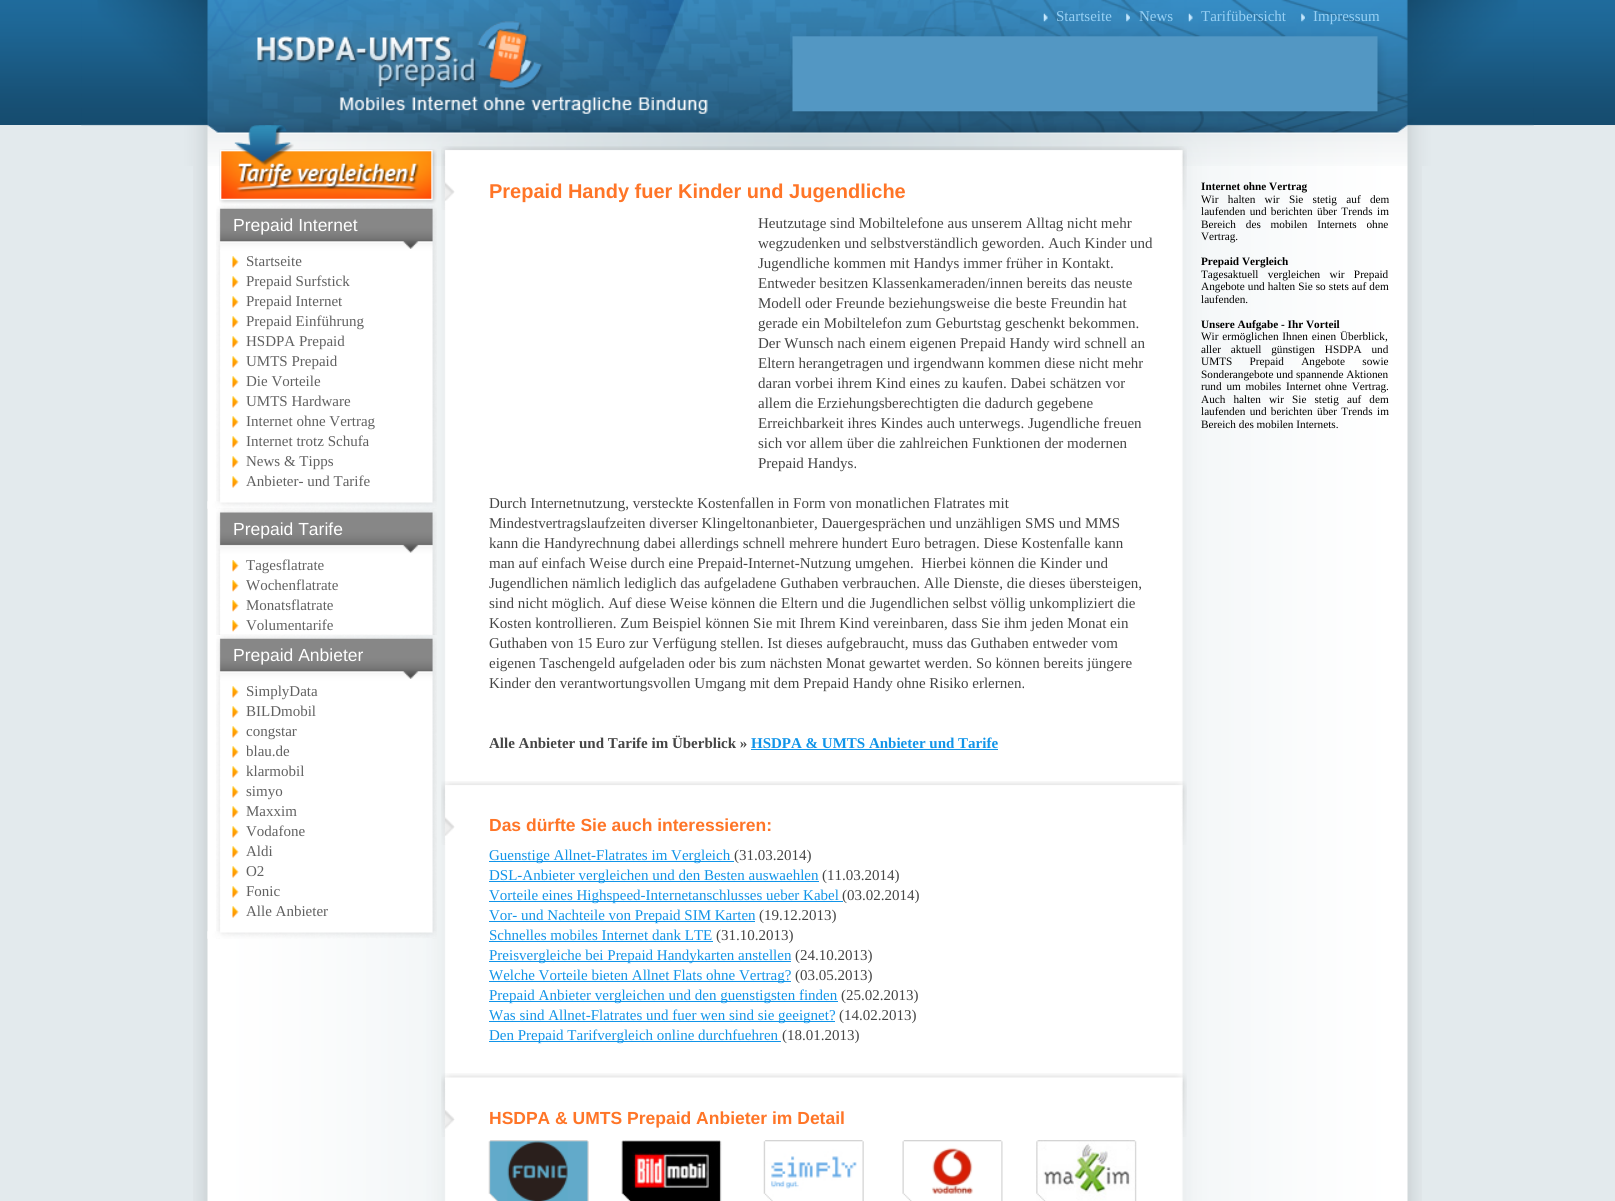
import math
import cairo



def draw_spaced(context, x, y, s, letter, word):
    context.move_to(x, y)
    for ch in s:
        context.show_text(ch)
        context.rel_move_to(letter + word * (ch == ' '), 0)


def draw_image(context, path, x, y, w, h):
    context.save()
    context.set_source_surface(cairo.ImageSurface.create_from_png(path), x, y)
    context.rectangle(x, y, w, h)
    context.fill()
    context.restore()


def draw(context):
    context.set_source_rgb(227 / 255, 234 / 255, 237 / 255)
    context.paint()
    draw_image(context, "images/1.png", 0, 0, 1615, 125)
    draw_image(context, "images/2.png", 81, 0, 1453, 166)
    draw_image(context, "images/3.png", 1043, 13, 5, 9)
    draw_image(context, "images/4.png", 1126, 13, 4, 9)
    draw_image(context, "images/5.png", 1188, 13, 5, 9)
    draw_image(context, "images/6.png", 1301, 13, 4, 9)
    draw_image(context, "images/7.png", 257, 29, 271, 48)
    draw_image(context, "images/9.png", 193, 166, 1229, 1035)
    draw_image(context, "images/10.png", 219, 149, 218, 55)
    draw_image(context, "images/8.png", 234, 125, 60, 41)
    draw_image(context, "images/11.png", 216, 204, 221, 305)
    draw_image(context, "images/12.png", 232, 256, 7, 12)
    draw_image(context, "images/13.png", 232, 276, 7, 12)
    draw_image(context, "images/13.png", 232, 296, 7, 12)
    draw_image(context, "images/13.png", 232, 316, 7, 12)
    draw_image(context, "images/13.png", 232, 336, 7, 12)
    draw_image(context, "images/13.png", 232, 356, 7, 12)
    draw_image(context, "images/13.png", 232, 376, 7, 12)
    draw_image(context, "images/13.png", 232, 396, 7, 12)
    draw_image(context, "images/13.png", 232, 416, 7, 12)
    draw_image(context, "images/13.png", 232, 436, 7, 12)
    draw_image(context, "images/13.png", 232, 456, 7, 12)
    draw_image(context, "images/14.png", 207, 501, 230, 8)
    draw_image(context, "images/13.png", 232, 476, 7, 12)
    draw_image(context, "images/15.png", 216, 508, 221, 127)
    draw_image(context, "images/16.png", 232, 560, 7, 12)
    draw_image(context, "images/16.png", 232, 580, 7, 12)
    draw_image(context, "images/16.png", 232, 600, 7, 12)
    draw_image(context, "images/16.png", 232, 620, 7, 12)
    draw_image(context, "images/17.png", 216, 634, 221, 305)
    draw_image(context, "images/13.png", 232, 686, 7, 12)
    draw_image(context, "images/13.png", 232, 706, 7, 12)
    draw_image(context, "images/13.png", 232, 726, 7, 12)
    draw_image(context, "images/13.png", 232, 746, 7, 12)
    draw_image(context, "images/13.png", 232, 766, 7, 12)
    draw_image(context, "images/13.png", 232, 786, 7, 12)
    draw_image(context, "images/13.png", 232, 806, 7, 12)
    draw_image(context, "images/13.png", 232, 826, 7, 12)
    draw_image(context, "images/13.png", 232, 846, 7, 12)
    draw_image(context, "images/13.png", 232, 866, 7, 12)
    draw_image(context, "images/13.png", 232, 886, 7, 12)
    draw_image(context, "images/14.png", 207, 931, 230, 8)
    draw_image(context, "images/13.png", 232, 906, 7, 12)
    draw_image(context, "images/18.png", 441, 146, 746, 64)
    draw_image(context, "images/19.png", 445, 182, 10, 19)
    context.set_source_rgb(17 / 255, 148 / 255, 232 / 255)
    context.rectangle(751, 749, 247, 1)
    context.fill()
    draw_image(context, "images/20.png", 441, 781, 746, 64)
    draw_image(context, "images/19.png", 445, 817, 10, 19)
    context.rectangle(489, 861, 245, 1)
    context.fill()
    context.rectangle(489, 881, 330, 1)
    context.fill()
    context.rectangle(489, 901, 354, 1)
    context.fill()
    context.rectangle(489, 921, 266, 1)
    context.fill()
    context.rectangle(489, 941, 224, 1)
    context.fill()
    context.rectangle(489, 961, 302, 1)
    context.fill()
    context.rectangle(489, 981, 302, 1)
    context.fill()
    context.rectangle(489, 1001, 349, 1)
    context.fill()
    context.rectangle(489, 1021, 346, 1)
    context.fill()
    context.rectangle(489, 1041, 292, 1)
    context.fill()
    draw_image(context, "images/21.png", 441, 1073, 746, 64)
    draw_image(context, "images/22.png", 445, 1110, 10, 19)
    draw_image(context, "images/23.png", 488, 1140, 101, 61)
    draw_image(context, "images/24.png", 621, 1140, 101, 61)
    draw_image(context, "images/25.png", 763, 1140, 101, 61)
    draw_image(context, "images/26.png", 902, 1140, 101, 61)
    draw_image(context, "images/27.png", 1036, 1140, 101, 61)
    context.select_font_face("Liberation Serif")
    context.set_font_size(15)
    context.set_source_rgb(151 / 255, 208 / 255, 244 / 255)
    context.move_to(1056, 21)
    context.show_text("Startseite")
    context.move_to(1139, 21)
    context.show_text("News")
    context.move_to(1201, 21)
    context.show_text("Tarifübersicht")
    context.move_to(1313, 21)
    context.show_text("Impressum")
    context.select_font_face("Liberation Sans")
    context.set_font_size(17.5)
    context.set_source_rgb(1, 1, 1)
    context.move_to(233, 231)
    context.show_text("Prepaid Internet")
    context.select_font_face("Liberation Serif")
    context.set_font_size(15)
    context.set_source_rgb(97 / 255, 97 / 255, 97 / 255)
    context.move_to(246, 266)
    context.show_text("Startseite")
    context.move_to(246, 286)
    context.show_text("Prepaid Surfstick")
    context.move_to(246, 306)
    context.show_text("Prepaid Internet")
    context.move_to(246, 326)
    context.show_text("Prepaid Einführung")
    context.move_to(246, 346)
    context.show_text("HSDPA Prepaid")
    context.move_to(246, 366)
    context.show_text("UMTS Prepaid")
    context.move_to(246, 386)
    context.show_text("Die Vorteile")
    context.move_to(246, 406)
    context.show_text("UMTS Hardware")
    context.move_to(246, 426)
    context.show_text("Internet ohne Vertrag")
    context.move_to(246, 446)
    context.show_text("Internet trotz Schufa")
    context.move_to(246, 466)
    context.show_text("News & Tipps")
    context.move_to(246, 486)
    context.show_text("Anbieter- und Tarife")
    context.select_font_face("Liberation Sans")
    context.set_font_size(17.5)
    context.set_source_rgb(1, 1, 1)
    context.move_to(233, 535)
    context.show_text("Prepaid Tarife")
    context.select_font_face("Liberation Serif")
    context.set_font_size(15)
    context.set_source_rgb(97 / 255, 97 / 255, 97 / 255)
    context.move_to(246, 570)
    context.show_text("Tagesflatrate")
    context.move_to(246, 590)
    context.show_text("Wochenflatrate")
    context.move_to(246, 610)
    context.show_text("Monatsflatrate")
    context.move_to(246, 630)
    context.show_text("Volumentarife")
    context.select_font_face("Liberation Sans")
    context.set_font_size(17.5)
    context.set_source_rgb(1, 1, 1)
    context.move_to(233, 661)
    context.show_text("Prepaid Anbieter")
    context.select_font_face("Liberation Serif")
    context.set_font_size(15)
    context.set_source_rgb(97 / 255, 97 / 255, 97 / 255)
    context.move_to(246, 696)
    context.show_text("SimplyData")
    context.move_to(246, 716)
    context.show_text("BILDmobil")
    context.move_to(246, 736)
    context.show_text("congstar")
    context.move_to(246, 756)
    context.show_text("blau.de")
    context.move_to(246, 776)
    context.show_text("klarmobil")
    context.move_to(246, 796)
    context.show_text("simyo")
    context.move_to(246, 816)
    context.show_text("Maxxim")
    context.move_to(246, 836)
    context.show_text("Vodafone")
    context.move_to(246, 856)
    context.show_text("Aldi")
    context.move_to(246, 876)
    context.show_text("O2")
    context.move_to(246, 896)
    context.show_text("Fonic")
    context.move_to(246, 916)
    context.show_text("Alle Anbieter")
    context.select_font_face("Liberation Sans", cairo.FontSlant.NORMAL, cairo.FontWeight.BOLD)
    context.set_font_size(20)
    context.set_source_rgb(1, 117 / 255, 39 / 255)
    context.move_to(489, 198)
    context.show_text("Prepaid Handy fuer Kinder und Jugendliche")
    context.select_font_face("Liberation Serif")
    context.set_font_size(15)
    context.set_source_rgb(69 / 255, 69 / 255, 69 / 255)
    context.move_to(758, 228)
    context.show_text("Heutzutage sind Mobiltelefone aus unserem Alltag nicht mehr")
    context.move_to(758, 248)
    context.show_text("wegzudenken und selbstverständlich geworden. Auch Kinder und")
    context.move_to(758, 268)
    context.show_text("Jugendliche kommen mit Handys immer früher in Kontakt.")
    context.move_to(758, 288)
    context.show_text("Entweder besitzen Klassenkameraden/innen bereits das neuste")
    context.move_to(758, 308)
    context.show_text("Modell oder Freunde beziehungsweise die beste Freundin hat")
    context.move_to(758, 328)
    context.show_text("gerade ein Mobiltelefon zum Geburtstag geschenkt bekommen.")
    context.move_to(758, 348)
    context.show_text("Der Wunsch nach einem eigenen Prepaid Handy wird schnell an")
    context.move_to(758, 368)
    context.show_text("Eltern herangetragen und irgendwann kommen diese nicht mehr")
    context.move_to(758, 388)
    context.show_text("daran vorbei ihrem Kind eines zu kaufen. Dabei schätzen vor")
    context.move_to(758, 408)
    context.show_text("allem die Erziehungsberechtigten die dadurch gegebene")
    context.move_to(758, 428)
    context.show_text("Erreichbarkeit ihres Kindes auch unterwegs. Jugendliche freuen")
    context.move_to(758, 448)
    context.show_text("sich vor allem über die zahlreichen Funktionen der modernen")
    context.move_to(758, 468)
    context.show_text("Prepaid Handys.")
    context.move_to(489, 508)
    context.show_text("Durch Internetnutzung, versteckte Kostenfallen in Form von monatlichen Flatrates mit")
    context.move_to(489, 528)
    context.show_text("Mindestvertragslaufzeiten diverser Klingeltonanbieter, Dauergesprächen und unzähligen SMS und MMS")
    context.move_to(489, 548)
    context.show_text("kann die Handyrechnung dabei allerdings schnell mehrere hundert Euro betragen. Diese Kostenfalle kann")
    context.move_to(489, 568)
    context.show_text("man auf einfach Weise durch eine Prepaid-Internet-Nutzung umgehen.  Hierbei können die Kinder und")
    context.move_to(489, 588)
    context.show_text("Jugendlichen nämlich lediglich das aufgeladene Guthaben verbrauchen. Alle Dienste, die dieses übersteigen,")
    context.move_to(489, 608)
    context.show_text("sind nicht möglich. Auf diese Weise können die Eltern und die Jugendlichen selbst völlig unkompliziert die")
    context.move_to(489, 628)
    context.show_text("Kosten kontrollieren. Zum Beispiel können Sie mit Ihrem Kind vereinbaren, dass Sie ihm jeden Monat ein")
    context.move_to(489, 648)
    context.show_text("Guthaben von 15 Euro zur Verfügung stellen. Ist dieses aufgebraucht, muss das Guthaben entweder vom")
    context.move_to(489, 668)
    context.show_text("eigenen Taschengeld aufgeladen oder bis zum nächsten Monat gewartet werden. So können bereits jüngere")
    context.move_to(489, 688)
    context.show_text("Kinder den verantwortungsvollen Umgang mit dem Prepaid Handy ohne Risiko erlernen.")
    context.select_font_face("Liberation Serif", cairo.FontSlant.NORMAL, cairo.FontWeight.BOLD)
    context.move_to(489, 748)
    context.show_text("Alle Anbieter und Tarife im Überblick »")
    context.set_source_rgb(17 / 255, 148 / 255, 232 / 255)
    context.move_to(751, 748)
    context.show_text("HSDPA & UMTS Anbieter und Tarife")
    context.select_font_face("Liberation Sans", cairo.FontSlant.NORMAL, cairo.FontWeight.BOLD)
    context.set_font_size(17.5)
    context.set_source_rgb(1, 117 / 255, 39 / 255)
    context.move_to(489, 831)
    context.show_text("Das dürfte Sie auch interessieren:")
    context.select_font_face("Liberation Serif")
    context.set_font_size(15)
    context.set_source_rgb(17 / 255, 148 / 255, 232 / 255)
    context.move_to(489, 860)
    context.show_text("Guenstige Allnet-Flatrates im Vergleich")
    context.set_source_rgb(69 / 255, 69 / 255, 69 / 255)
    context.move_to(734, 860)
    context.show_text("(31.03.2014)")
    context.set_source_rgb(17 / 255, 148 / 255, 232 / 255)
    context.move_to(489, 880)
    context.show_text("DSL-Anbieter vergleichen und den Besten auswaehlen")
    context.set_source_rgb(69 / 255, 69 / 255, 69 / 255)
    context.move_to(822, 880)
    context.show_text("(11.03.2014)")
    context.set_source_rgb(17 / 255, 148 / 255, 232 / 255)
    context.move_to(489, 900)
    context.show_text("Vorteile eines Highspeed-Internetanschlusses ueber Kabel")
    context.set_source_rgb(69 / 255, 69 / 255, 69 / 255)
    context.move_to(842, 900)
    context.show_text("(03.02.2014)")
    context.set_source_rgb(17 / 255, 148 / 255, 232 / 255)
    context.move_to(489, 920)
    context.show_text("Vor- und Nachteile von Prepaid SIM Karten")
    context.set_source_rgb(69 / 255, 69 / 255, 69 / 255)
    context.move_to(759, 920)
    context.show_text("(19.12.2013)")
    context.set_source_rgb(17 / 255, 148 / 255, 232 / 255)
    context.move_to(489, 940)
    context.show_text("Schnelles mobiles Internet dank LTE")
    context.set_source_rgb(69 / 255, 69 / 255, 69 / 255)
    context.move_to(716, 940)
    context.show_text("(31.10.2013)")
    context.set_source_rgb(17 / 255, 148 / 255, 232 / 255)
    context.move_to(489, 960)
    context.show_text("Preisvergleiche bei Prepaid Handykarten anstellen")
    context.set_source_rgb(69 / 255, 69 / 255, 69 / 255)
    context.move_to(795, 960)
    context.show_text("(24.10.2013)")
    context.set_source_rgb(17 / 255, 148 / 255, 232 / 255)
    context.move_to(489, 980)
    context.show_text("Welche Vorteile bieten Allnet Flats ohne Vertrag?")
    context.set_source_rgb(69 / 255, 69 / 255, 69 / 255)
    context.move_to(795, 980)
    context.show_text("(03.05.2013)")
    context.set_source_rgb(17 / 255, 148 / 255, 232 / 255)
    context.move_to(489, 1000)
    context.show_text("Prepaid Anbieter vergleichen und den guenstigsten finden")
    context.set_source_rgb(69 / 255, 69 / 255, 69 / 255)
    context.move_to(841, 1000)
    context.show_text("(25.02.2013)")
    context.set_source_rgb(17 / 255, 148 / 255, 232 / 255)
    context.move_to(489, 1020)
    context.show_text("Was sind Allnet-Flatrates und fuer wen sind sie geeignet?")
    context.set_source_rgb(69 / 255, 69 / 255, 69 / 255)
    context.move_to(839, 1020)
    context.show_text("(14.02.2013)")
    context.set_source_rgb(17 / 255, 148 / 255, 232 / 255)
    context.move_to(489, 1040)
    context.show_text("Den Prepaid Tarifvergleich online durchfuehren")
    context.set_source_rgb(69 / 255, 69 / 255, 69 / 255)
    context.move_to(782, 1040)
    context.show_text("(18.01.2013)")
    context.select_font_face("Liberation Sans", cairo.FontSlant.NORMAL, cairo.FontWeight.BOLD)
    context.set_font_size(17.5)
    context.set_source_rgb(1, 117 / 255, 39 / 255)
    context.move_to(489, 1124)
    context.show_text("HSDPA & UMTS Prepaid Anbieter im Detail")
    context.select_font_face("Liberation Serif", cairo.FontSlant.NORMAL, cairo.FontWeight.BOLD)
    context.set_font_size(11.25)
    context.set_source_rgb(0, 0, 0)
    context.move_to(1201, 190)
    context.show_text("Internet ohne Vertrag")
    context.select_font_face("Liberation Serif")
    draw_spaced(context, 1201, 203, "Wir halten wir Sie stetig auf dem", 0, 6.5)
    draw_spaced(context, 1201, 215, "laufenden und berichten über Trends", 0, 1.5)
    context.move_to(1377, 215)
    context.show_text("im")
    draw_spaced(context, 1201, 228, "Bereich des mobilen Internets ohne", 0, 7)
    context.move_to(1201, 240)
    context.show_text("Vertrag.")
    context.select_font_face("Liberation Serif", cairo.FontSlant.NORMAL, cairo.FontWeight.BOLD)
    context.move_to(1201, 265)
    context.show_text("Prepaid Vergleich")
    context.select_font_face("Liberation Serif")
    draw_spaced(context, 1201, 278, "Tagesaktuell vergleichen wir Prepaid", 0, 6.5)
    draw_spaced(context, 1201, 290, "Angebote und halten Sie so stets auf dem", 0, 0.25)
    context.move_to(1201, 303)
    context.show_text("laufenden.")
    context.select_font_face("Liberation Serif", cairo.FontSlant.NORMAL, cairo.FontWeight.BOLD)
    context.move_to(1201, 328)
    context.show_text("Unsere Aufgabe - Ihr Vorteil")
    context.select_font_face("Liberation Serif")
    draw_spaced(context, 1201, 340, "Wir ermöglichen Ihnen einen Überblick,", 0, 1)
    draw_spaced(context, 1201, 353, "aller aktuell günstigen HSDPA und", 0, 7)
    draw_spaced(context, 1201, 365, "UMTS Prepaid Angebote sowie", 0, 14.5)
    context.move_to(1201, 378)
    context.show_text("Sonderangebote und spannende Aktionen")
    draw_spaced(context, 1201, 390, "rund um mobiles Internet", 0, 2)
    draw_spaced(context, 1325, 390, "ohne Vertrag.", 0, 2)
    draw_spaced(context, 1201, 403, "Auch halten wir Sie stetig auf dem", 0, 5.25)
    draw_spaced(context, 1201, 415, "laufenden und berichten über Trends", 0, 1.5)
    context.move_to(1377, 415)
    context.show_text("im")
    context.move_to(1201, 428)
    context.show_text("Bereich des mobilen Internets.")


surface = cairo.ImageSurface(cairo.Format.RGB24, 1615, 1201)
context = cairo.Context(surface)
options = cairo.FontOptions()
options.set_hint_metrics(cairo.HintMetrics.OFF)
options.set_hint_style(cairo.HintStyle.NONE)
context.set_font_options(options)
context.set_miter_limit(4)
draw(context)
surface.write_to_png("out.png")
